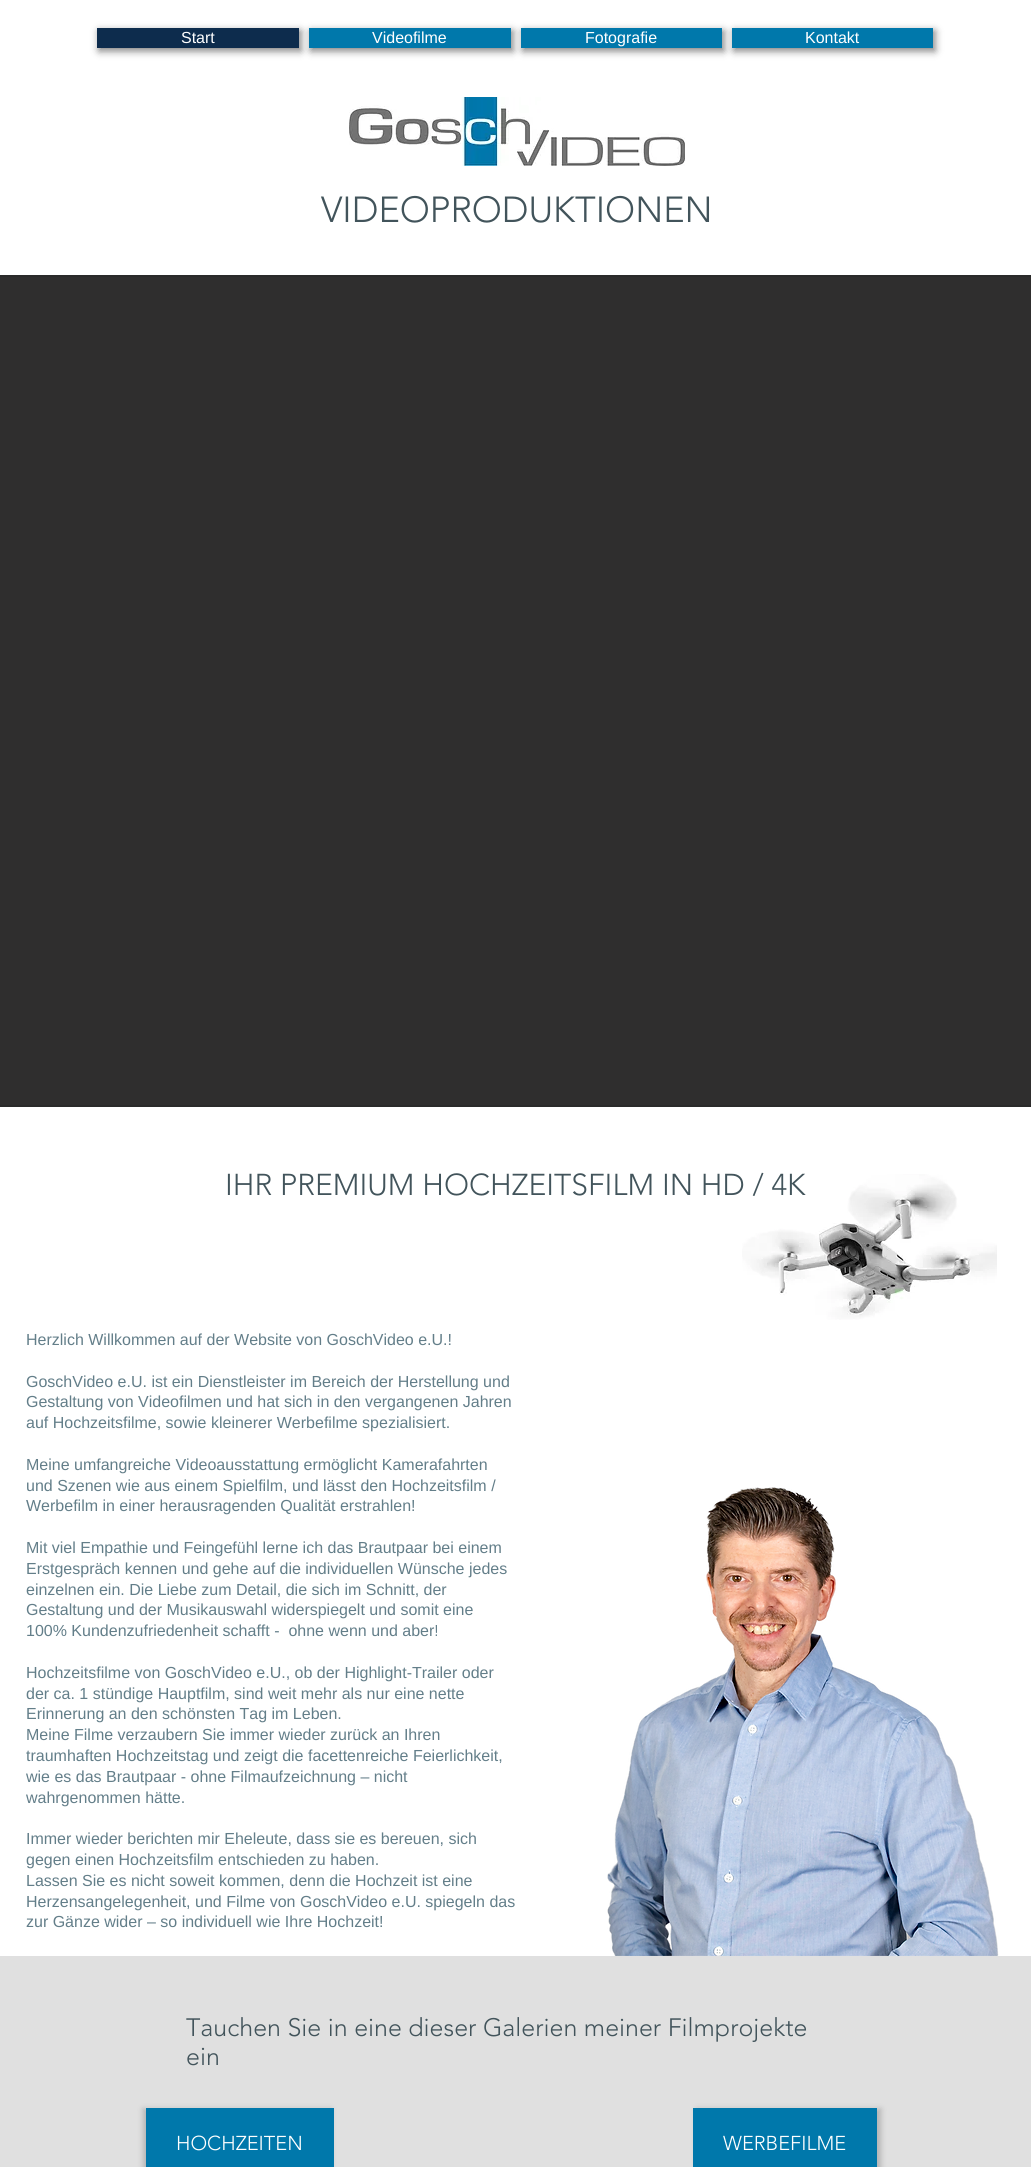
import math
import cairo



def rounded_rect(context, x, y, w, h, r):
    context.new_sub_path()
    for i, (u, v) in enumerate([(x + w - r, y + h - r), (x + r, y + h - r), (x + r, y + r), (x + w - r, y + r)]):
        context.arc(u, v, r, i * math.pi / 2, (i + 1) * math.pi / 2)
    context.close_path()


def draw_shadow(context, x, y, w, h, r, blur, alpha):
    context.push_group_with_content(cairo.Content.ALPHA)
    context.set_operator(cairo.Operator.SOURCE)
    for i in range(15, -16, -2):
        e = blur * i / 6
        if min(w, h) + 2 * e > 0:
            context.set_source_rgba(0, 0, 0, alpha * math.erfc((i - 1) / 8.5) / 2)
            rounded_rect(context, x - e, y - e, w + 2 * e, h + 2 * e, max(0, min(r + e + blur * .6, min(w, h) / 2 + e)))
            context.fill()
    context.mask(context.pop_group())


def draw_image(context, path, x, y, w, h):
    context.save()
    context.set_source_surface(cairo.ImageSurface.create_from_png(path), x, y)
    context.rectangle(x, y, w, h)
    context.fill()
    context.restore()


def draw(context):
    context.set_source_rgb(47 / 255, 46 / 255, 46 / 255)
    context.paint()
    context.set_source_rgb(1, 1, 1)
    context.rectangle(0, 0, 1031, 275)
    context.fill()
    context.set_source_rgb(0, 0, 0)
    draw_shadow(context, 99, 31, 202, 20, 0, 4, 0.5)
    context.set_source_rgb(13 / 255, 44 / 255, 77 / 255)
    context.rectangle(97, 28, 202, 20)
    context.fill()
    context.set_source_rgb(0, 0, 0)
    draw_shadow(context, 311, 31, 202, 20, 0, 4, 0.5)
    context.set_source_rgb(0, 120 / 255, 171 / 255)
    context.rectangle(309, 28, 202, 20)
    context.fill()
    context.set_source_rgb(0, 0, 0)
    draw_shadow(context, 523, 31, 201, 20, 0, 4, 0.5)
    context.set_source_rgb(0, 120 / 255, 171 / 255)
    context.rectangle(521, 28, 201, 20)
    context.fill()
    context.set_source_rgb(0, 0, 0)
    draw_shadow(context, 734, 31, 201, 20, 0, 4, 0.5)
    context.set_source_rgb(0, 120 / 255, 171 / 255)
    context.rectangle(732, 28, 201, 20)
    context.fill()
    draw_image(context, "images/1.png", 349, 97, 336, 69)
    context.set_source_rgb(1, 1, 1)
    context.rectangle(0, 1107, 1031, 849)
    context.fill()
    context.set_source_rgb(42 / 255, 42 / 255, 42 / 255)
    context.rectangle(0, 275, 1031, 2)
    context.fill()
    context.rectangle(0, 1105, 1031, 2)
    context.fill()
    draw_image(context, "images/2.png", 742, 1174, 255, 146)
    draw_image(context, "images/3.png", 607, 1487, 392, 469)
    context.set_source_rgb(224 / 255, 224 / 255, 224 / 255)
    context.rectangle(0, 1956, 1031, 211)
    context.fill()
    context.set_source_rgb(0, 0, 0)
    draw_shadow(context, 143, 2109, 188, 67, 0, 3, 0.2)
    context.set_source_rgb(0, 120 / 255, 171 / 255)
    context.rectangle(146, 2108, 188, 59)
    context.fill()
    context.set_source_rgb(0, 0, 0)
    draw_shadow(context, 697, 2109, 184, 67, 0, 3, 0.2)
    context.set_source_rgb(0, 120 / 255, 171 / 255)
    context.rectangle(693, 2108, 184, 59)
    context.fill()
    context.select_font_face("Liberation Sans")
    context.set_font_size(16)
    context.set_source_rgb(1, 1, 1)
    context.move_to(181, 43)
    context.show_text("Start")
    context.move_to(372, 43)
    context.show_text("Videofilme")
    context.move_to(585, 43)
    context.show_text("Fotografie")
    context.move_to(805, 43)
    context.show_text("Kontakt")
    context.select_font_face("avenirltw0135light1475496 Light")
    context.set_font_size(36)
    context.set_source_rgb(66 / 255, 84 / 255, 91 / 255)
    context.move_to(321, 222)
    context.show_text("VIDEOPRODUKTIONEN")
    context.set_font_size(30)
    context.move_to(225, 1195)
    context.show_text("IHR PREMIUM HOCHZEITSFILM IN HD / 4K")
    context.select_font_face("Liberation Sans")
    context.set_font_size(16)
    context.set_source_rgb(99 / 255, 126 / 255, 137 / 255)
    context.move_to(26, 1345)
    context.show_text("Herzlich Willkommen auf der Website von GoschVideo e.U.!")
    context.move_to(26, 1387)
    context.show_text("GoschVideo e.U. ist ein Dienstleister im Bereich der Herstellung und")
    context.move_to(26, 1407)
    context.show_text("Gestaltung von Videofilmen und hat sich in den vergangenen Jahren")
    context.move_to(26, 1428)
    context.show_text("auf Hochzeitsfilme, sowie kleinerer Werbefilme spezialisiert.")
    context.move_to(26, 1470)
    context.show_text("Meine umfangreiche Videoausstattung ermöglicht Kamerafahrten")
    context.move_to(26, 1491)
    context.show_text("und Szenen wie aus einem Spielfilm, und lässt den Hochzeitsfilm /")
    context.move_to(26, 1511)
    context.show_text("Werbefilm in einer herausragenden Qualität erstrahlen!")
    context.move_to(26, 1553)
    context.show_text("Mit viel Empathie und Feingefühl lerne ich das Brautpaar bei einem")
    context.move_to(26, 1574)
    context.show_text("Erstgespräch kennen und gehe auf die individuellen Wünsche jedes")
    context.move_to(26, 1595)
    context.show_text("einzelnen ein. Die Liebe zum Detail, die sich im Schnitt, der")
    context.move_to(26, 1615)
    context.show_text("Gestaltung und der Musikauswahl widerspiegelt und somit eine")
    context.move_to(26, 1636)
    context.show_text("100% Kundenzufriedenheit schafft -  ohne wenn und aber!")
    context.move_to(26, 1678)
    context.show_text("Hochzeitsfilme von GoschVideo e.U., ob der Highlight-Trailer oder")
    context.move_to(26, 1699)
    context.show_text("der ca. 1 stündige Hauptfilm, sind weit mehr als nur eine nette")
    context.move_to(26, 1719)
    context.show_text("Erinnerung an den schönsten Tag im Leben.")
    context.move_to(26, 1740)
    context.show_text("Meine Filme verzaubern Sie immer wieder zurück an Ihren")
    context.move_to(26, 1761)
    context.show_text("traumhaften Hochzeitstag und zeigt die facettenreiche Feierlichkeit,")
    context.move_to(26, 1782)
    context.show_text("wie es das Brautpaar - ohne Filmaufzeichnung – nicht")
    context.move_to(26, 1803)
    context.show_text("wahrgenommen hätte.")
    context.move_to(26, 1844)
    context.show_text("Immer wieder berichten mir Eheleute, dass sie es bereuen, sich")
    context.move_to(26, 1865)
    context.show_text("gegen einen Hochzeitsfilm entschieden zu haben.")
    context.move_to(26, 1886)
    context.show_text("Lassen Sie es nicht soweit kommen, denn die Hochzeit ist eine")
    context.move_to(26, 1907)
    context.show_text("Herzensangelegenheit, und Filme von GoschVideo e.U. spiegeln das")
    context.move_to(26, 1927)
    context.show_text("zur Gänze wider – so individuell wie Ihre Hochzeit!")
    context.select_font_face("avenirltw0135light1475496 Light")
    context.set_font_size(25)
    context.set_source_rgb(66 / 255, 84 / 255, 91 / 255)
    context.move_to(186, 2036)
    context.show_text("Tauchen Sie in eine dieser Galerien meiner Filmprojekte")
    context.move_to(186, 2065)
    context.show_text("ein")
    context.set_font_size(20)
    context.set_source_rgb(1, 1, 1)
    context.move_to(176, 2150)
    context.show_text("HOCHZEITEN")
    context.move_to(723, 2150)
    context.show_text("WERBEFILME")


surface = cairo.ImageSurface(cairo.Format.RGB24, 1031, 2167)
context = cairo.Context(surface)
options = cairo.FontOptions()
options.set_hint_metrics(cairo.HintMetrics.OFF)
options.set_hint_style(cairo.HintStyle.NONE)
context.set_font_options(options)
context.set_miter_limit(4)
draw(context)
surface.write_to_png("out.png")
